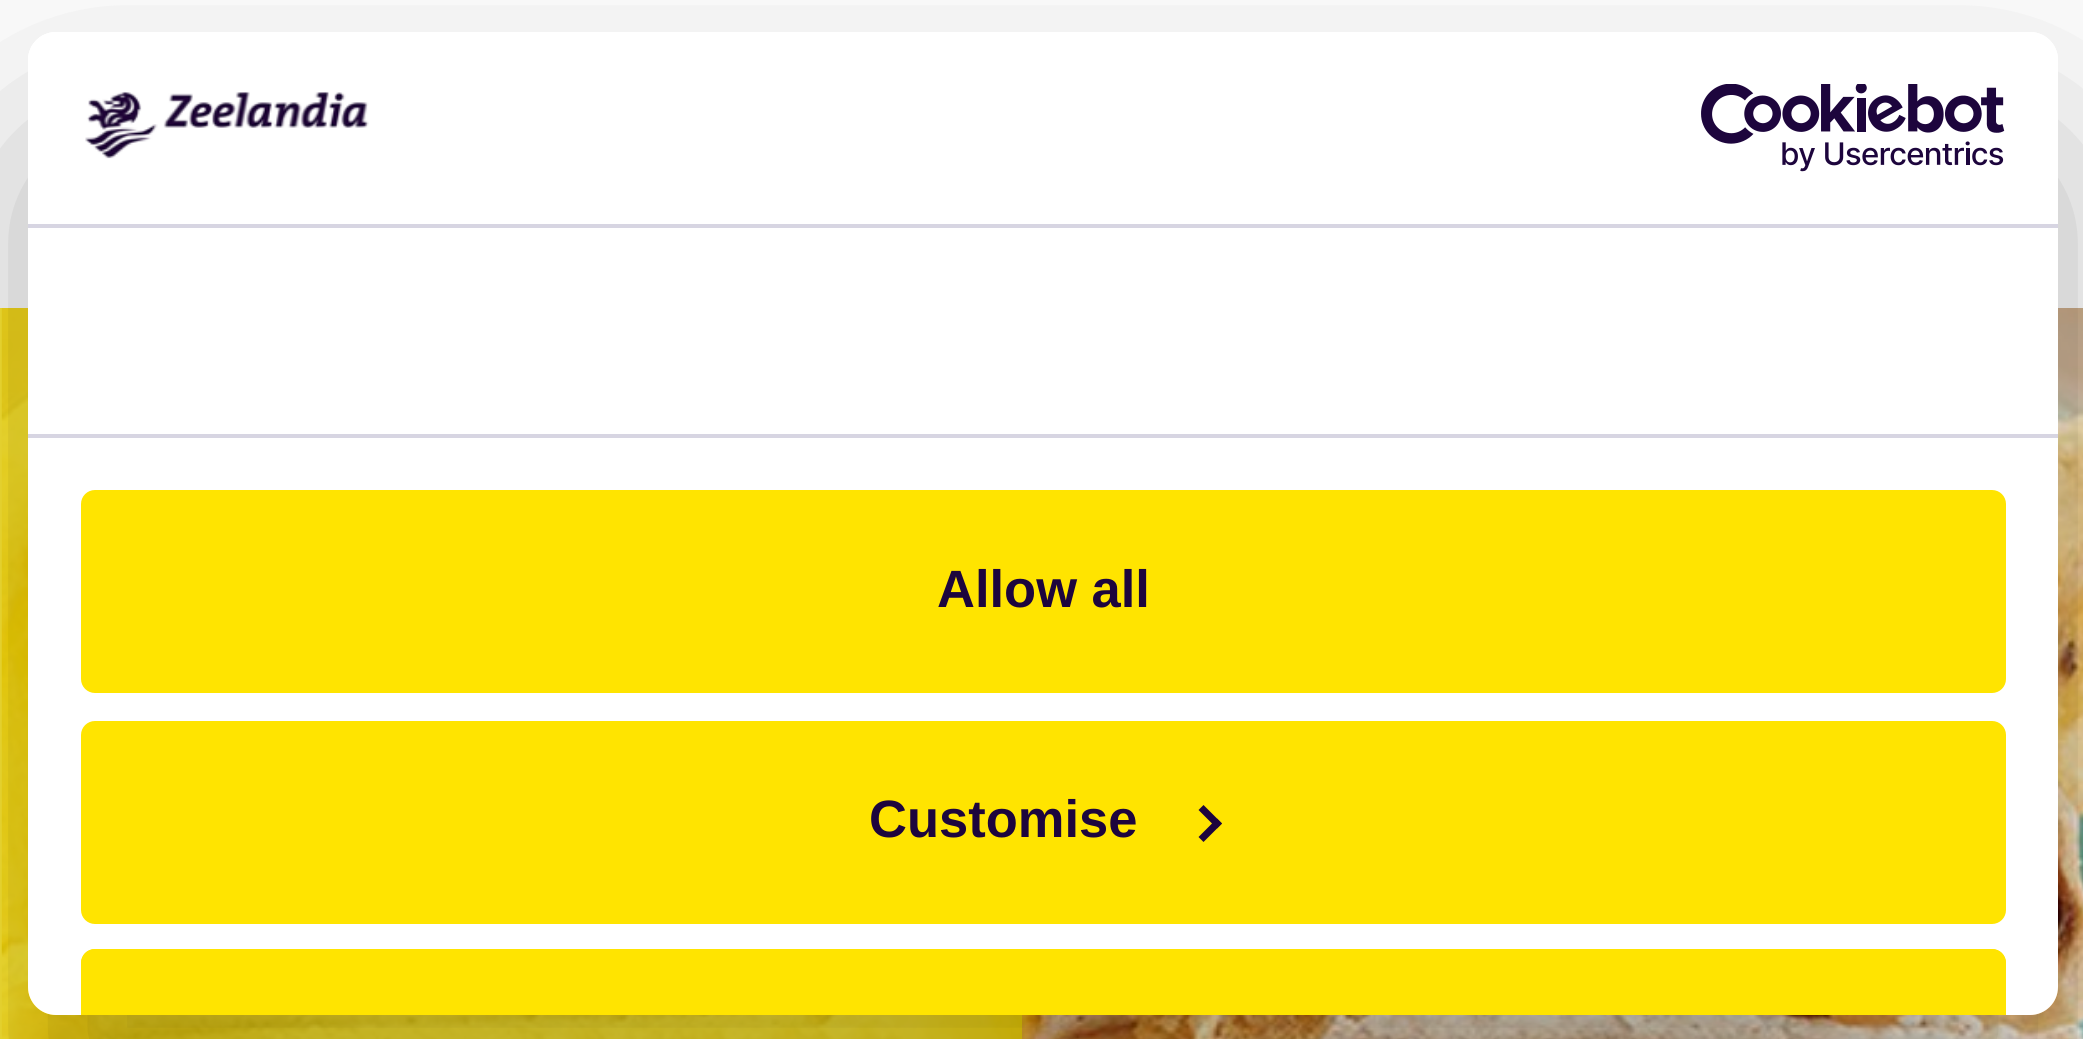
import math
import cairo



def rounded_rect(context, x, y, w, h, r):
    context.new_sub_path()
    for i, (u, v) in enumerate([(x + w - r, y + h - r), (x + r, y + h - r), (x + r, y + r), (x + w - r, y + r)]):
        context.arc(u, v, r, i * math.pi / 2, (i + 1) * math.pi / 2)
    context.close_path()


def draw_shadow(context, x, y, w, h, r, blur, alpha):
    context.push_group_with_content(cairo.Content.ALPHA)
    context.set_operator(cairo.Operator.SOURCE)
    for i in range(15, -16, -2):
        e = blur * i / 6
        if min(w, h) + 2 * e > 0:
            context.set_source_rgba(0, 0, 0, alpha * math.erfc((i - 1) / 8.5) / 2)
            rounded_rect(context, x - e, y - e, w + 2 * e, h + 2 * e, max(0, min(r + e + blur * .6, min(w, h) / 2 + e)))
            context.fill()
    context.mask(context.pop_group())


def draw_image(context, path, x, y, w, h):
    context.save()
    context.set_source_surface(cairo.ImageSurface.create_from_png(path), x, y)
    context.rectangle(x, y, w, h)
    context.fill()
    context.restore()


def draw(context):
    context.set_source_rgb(1, 1, 1)
    context.paint()
    draw_image(context, "images/1.png", 1, 308, 2082, 731)
    context.set_source_rgba(1, 228 / 255, 2 / 255, 0.8)
    context.rectangle(0, 308, 1022, 731)
    context.fill()
    context.save()
    context.set_fill_rule(cairo.FillRule.EVEN_ODD)
    context.new_path()
    context.move_to(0, 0)
    context.line_to(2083, 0)
    context.line_to(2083, 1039)
    context.line_to(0, 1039)
    context.close_path()
    context.move_to(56, 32)
    context.line_to(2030, 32)
    context.curve_to(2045.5, 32, 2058, 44.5, 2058, 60)
    context.line_to(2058, 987)
    context.curve_to(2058, 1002.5, 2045.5, 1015, 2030, 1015)
    context.line_to(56, 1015)
    context.curve_to(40.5, 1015, 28, 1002.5, 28, 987)
    context.line_to(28, 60)
    context.curve_to(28, 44.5, 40.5, 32, 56, 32)
    context.close_path()
    context.clip()
    context.set_source_rgb(0, 0, 0)
    draw_shadow(context, 28, 144, 2030, 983, 28, 119, 0.3)
    context.restore()
    context.set_source_rgb(1, 1, 1)
    rounded_rect(context, 28, 32, 2030, 983, 28)
    context.fill()
    context.set_source_rgb(215 / 255, 213 / 255, 226 / 255)
    context.rectangle(28, 224, 2030, 4)
    context.fill()
    draw_image(context, "images/2.png", 85, 91, 284, 68)
    draw_image(context, "images/3.png", 1701, 84, 304, 88)
    context.rectangle(28, 434, 2030, 4)
    context.fill()
    context.set_source_rgb(1, 228 / 255, 0)
    rounded_rect(context, 84.5, 493.5, 1918, 196, 10.5)
    context.fill_preserve()
    context.set_line_width(7)
    context.stroke()
    rounded_rect(context, 84.5, 724.5, 1918, 196, 10.5)
    context.fill_preserve()
    context.stroke()
    context.set_source_rgb(29 / 255, 5 / 255, 61 / 255)
    context.new_path()
    context.move_to(1203.5, 805)
    context.line_to(1222, 823.5)
    context.line_to(1217, 828.5)
    context.line_to(1198.5, 810)
    context.close_path()
    context.fill()
    context.new_path()
    context.move_to(1217, 818.5)
    context.line_to(1222, 823.5)
    context.line_to(1203.5, 842)
    context.line_to(1198.5, 837)
    context.close_path()
    context.fill()
    context.set_source_rgb(1, 228 / 255, 0)
    context.new_path()
    context.move_to(95, 949)
    context.line_to(1992, 949)
    context.curve_to(1999.5, 949, 2006, 955.5, 2006, 963)
    context.line_to(2006, 1015)
    context.line_to(81, 1015)
    context.line_to(81, 963)
    context.curve_to(81, 955.5, 87.5, 949, 95, 949)
    context.close_path()
    context.fill()
    context.new_path()
    context.move_to(95, 949)
    context.curve_to(87, 949, 81, 955, 81, 963)
    context.line_to(81, 1015)
    context.line_to(88, 1015)
    context.line_to(88, 963)
    context.curve_to(88, 959, 91, 956, 95, 956)
    context.line_to(1992, 956)
    context.curve_to(1996, 956, 1999, 959, 1999, 963)
    context.line_to(1999, 1015)
    context.line_to(2006, 1015)
    context.line_to(2006, 963)
    context.curve_to(2006, 955, 2000, 949, 1992, 949)
    context.close_path()
    context.fill()
    context.select_font_face("Liberation Sans", cairo.FontSlant.NORMAL, cairo.FontWeight.BOLD)
    context.set_font_size(52.5)
    context.set_source_rgb(29 / 255, 5 / 255, 61 / 255)
    context.move_to(937, 607)
    context.show_text("Allow all")
    context.move_to(869, 837)
    context.show_text("Customise")


surface = cairo.ImageSurface(cairo.Format.RGB24, 2083, 1039)
context = cairo.Context(surface)
options = cairo.FontOptions()
options.set_hint_metrics(cairo.HintMetrics.OFF)
options.set_hint_style(cairo.HintStyle.NONE)
context.set_font_options(options)
context.set_miter_limit(4)
draw(context)
surface.write_to_png("out.png")
